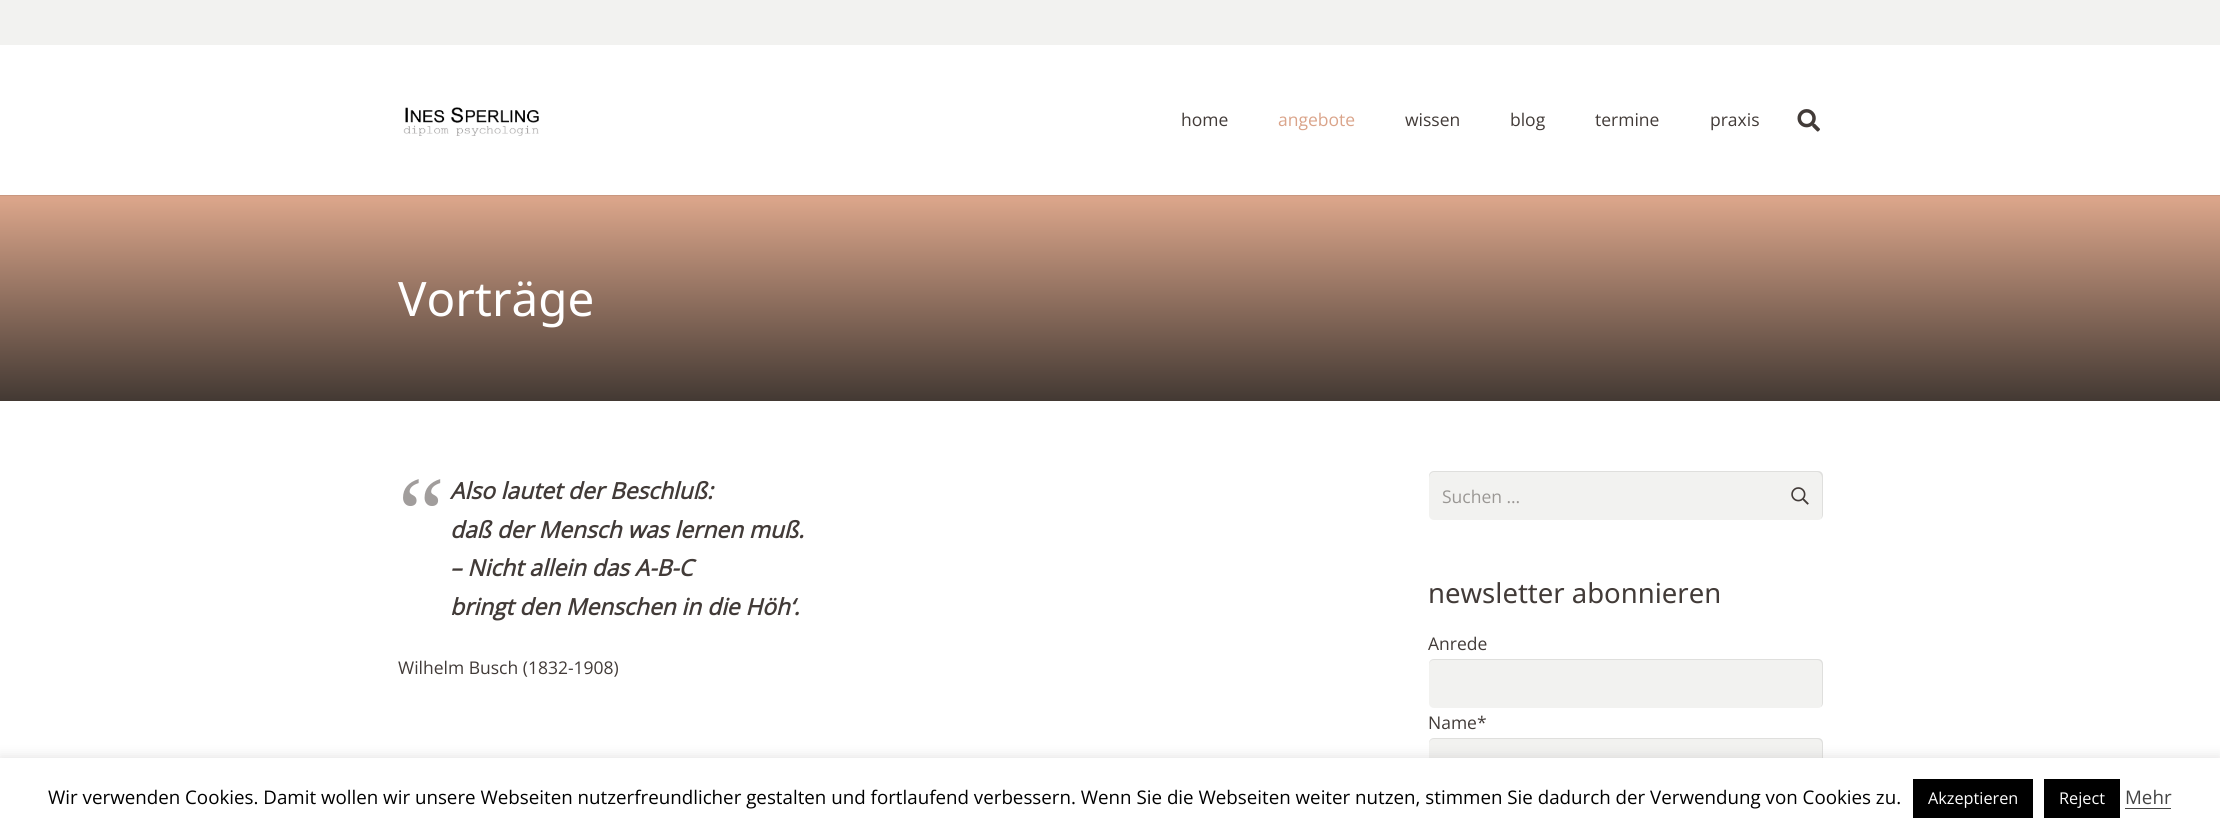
import math
import cairo



def rounded_rect(context, x, y, w, h, r):
    context.new_sub_path()
    for i, (u, v) in enumerate([(x + w - r, y + h - r), (x + r, y + h - r), (x + r, y + r), (x + w - r, y + r)]):
        context.arc(u, v, r, i * math.pi / 2, (i + 1) * math.pi / 2)
    context.close_path()


def draw_shadow(context, x, y, w, h, r, blur, alpha):
    context.push_group_with_content(cairo.Content.ALPHA)
    context.set_operator(cairo.Operator.SOURCE)
    for i in range(15, -16, -2):
        e = blur * i / 6
        if min(w, h) + 2 * e > 0:
            context.set_source_rgba(0, 0, 0, alpha * math.erfc((i - 1) / 8.5) / 2)
            rounded_rect(context, x - e, y - e, w + 2 * e, h + 2 * e, max(0, min(r + e + blur * .6, min(w, h) / 2 + e)))
            context.fill()
    context.mask(context.pop_group())


def draw_image(context, path, x, y, w, h):
    context.save()
    context.set_source_surface(cairo.ImageSurface.create_from_png(path), x, y)
    context.rectangle(x, y, w, h)
    context.fill()
    context.restore()


def draw(context):
    context.set_source_rgb(1, 1, 1)
    context.paint()
    context.set_source_rgb(242 / 255, 242 / 255, 240 / 255)
    context.rectangle(0, 0, 2220, 45)
    context.fill()
    context.set_source_rgb(201 / 255, 151 / 255, 127 / 255)
    context.rectangle(0, 195, 2220, 1)
    context.fill()
    draw_image(context, "images/1.png", 403, 107, 136, 29)
    draw_image(context, "images/2.png", 1797, 109, 23, 23)
    context.set_source_rgb(218 / 255, 164 / 255, 138 / 255)
    context.rectangle(0, 196, 2220, 5)
    context.fill()
    gradient = cairo.LinearGradient(1110, 201, 1110, 401)
    gradient.add_color_stop_rgba(0, 217 / 255, 164 / 255, 137 / 255, 1)
    gradient.add_color_stop_rgba(1, 67 / 255, 57 / 255, 51 / 255, 1)
    context.set_source(gradient)
    context.rectangle(0, 201, 2220, 200)
    context.fill()
    context.set_source_rgb(242 / 255, 242 / 255, 240 / 255)
    rounded_rect(context, 1429, 471, 394, 49, 5)
    context.fill()
    context.set_source_rgba(0, 0, 0, 0.08)
    context.new_path()
    context.move_to(1434, 472)
    context.line_to(1817, 472)
    context.curve_to(1820, 472, 1822, 475, 1822, 478)
    context.line_to(1822, 516)
    context.line_to(1821, 519)
    context.curve_to(1822, 518, 1823, 516, 1823, 515)
    context.line_to(1823, 476)
    context.curve_to(1823, 473, 1821, 471, 1818, 471)
    context.line_to(1434, 471)
    context.curve_to(1431, 471, 1429, 473, 1429, 476)
    context.line_to(1429, 478)
    context.curve_to(1429, 475, 1431, 472, 1434, 472)
    context.close_path()
    context.fill()
    draw_image(context, "images/3.png", 1791, 487, 18, 18)
    context.set_source_rgb(242 / 255, 242 / 255, 240 / 255)
    rounded_rect(context, 1429, 659, 394, 49, 5)
    context.fill()
    context.set_source_rgba(0, 0, 0, 0.08)
    context.new_path()
    context.move_to(1434, 660)
    context.line_to(1817, 660)
    context.curve_to(1820, 660, 1822, 662, 1822, 665)
    context.line_to(1822, 704)
    context.curve_to(1822, 705, 1821, 706, 1821, 707)
    context.curve_to(1822, 706, 1823, 705, 1823, 703)
    context.line_to(1823, 664)
    context.curve_to(1823, 661, 1821, 659, 1818, 659)
    context.line_to(1434, 659)
    context.curve_to(1431, 659, 1429, 661, 1429, 664)
    context.line_to(1429, 665)
    context.curve_to(1429, 662, 1431, 660, 1434, 660)
    context.close_path()
    context.fill()
    context.set_source_rgb(242 / 255, 242 / 255, 240 / 255)
    rounded_rect(context, 1429, 738, 394, 50, 5)
    context.fill()
    context.set_source_rgba(0, 0, 0, 0.08)
    context.new_path()
    context.move_to(1434, 739)
    context.line_to(1817, 739)
    context.curve_to(1820, 739, 1822, 741, 1822, 744)
    context.line_to(1822, 784)
    context.curve_to(1822, 785, 1821, 786, 1821, 787)
    context.curve_to(1822, 786, 1823, 785, 1823, 783)
    context.line_to(1823, 743)
    context.curve_to(1823, 740, 1821, 738, 1818, 738)
    context.line_to(1434, 738)
    context.curve_to(1431, 738, 1429, 740, 1429, 743)
    context.line_to(1429, 744)
    context.curve_to(1429, 741, 1431, 739, 1434, 739)
    context.close_path()
    context.fill()
    context.set_source_rgb(172 / 255, 171 / 255, 171 / 255)
    draw_shadow(context, 0, 756, 2220, 75, 0, 6, 0.3)
    context.set_source_rgb(1, 1, 1)
    context.rectangle(0, 758, 2220, 74)
    context.fill()
    context.set_source_rgb(0, 0, 0)
    context.rectangle(1913, 779, 120, 39)
    context.fill()
    context.rectangle(2044, 779, 76, 39)
    context.fill()
    context.set_source_rgb(68 / 255, 68 / 255, 68 / 255)
    context.rectangle(2125, 808, 46, 1)
    context.fill()
    context.select_font_face("Open Sans")
    context.set_font_size(17.5)
    context.set_source_rgb(66 / 255, 59 / 255, 56 / 255)
    context.move_to(1181, 126)
    context.show_text("home")
    context.set_source_rgb(218 / 255, 164 / 255, 138 / 255)
    context.move_to(1278, 126)
    context.show_text("angebote")
    context.set_source_rgb(66 / 255, 59 / 255, 56 / 255)
    context.move_to(1405, 126)
    context.show_text("wissen")
    context.move_to(1510, 126)
    context.show_text("blog")
    context.move_to(1595, 126)
    context.show_text("termine")
    context.move_to(1710, 126)
    context.show_text("praxis")
    context.select_font_face("Noto Sans")
    context.set_font_size(47.5)
    context.set_source_rgb(1, 1, 1)
    context.move_to(398, 316)
    context.show_text("Vorträge")
    context.select_font_face("Liberation Serif")
    context.set_font_size(105)
    context.set_source_rgb(161 / 255, 157 / 255, 156 / 255)
    context.move_to(398, 549)
    context.show_text("“")
    context.select_font_face("Open Sans", cairo.FontSlant.ITALIC, cairo.FontWeight.BOLD)
    context.set_font_size(22.75)
    context.set_source_rgb(66 / 255, 59 / 255, 56 / 255)
    context.move_to(450, 499)
    context.show_text("Also lautet der Beschluß:")
    context.move_to(450, 538)
    context.show_text("daß der Mensch was lernen muß.")
    context.move_to(450, 576)
    context.show_text("– Nicht allein das A-B-C")
    context.move_to(450, 615)
    context.show_text("bringt den Menschen in die Höh‘.")
    context.select_font_face("Open Sans")
    context.set_font_size(17.5)
    context.move_to(398, 674)
    context.show_text("Wilhelm Busch (1832-1908)")
    context.set_source_rgb(154 / 255, 151 / 255, 148 / 255)
    context.move_to(1442, 503)
    context.show_text("Suchen …")
    context.select_font_face("Noto Sans")
    context.set_font_size(27.5)
    context.set_source_rgb(66 / 255, 59 / 255, 56 / 255)
    context.move_to(1428, 603)
    context.show_text("newsletter abonnieren")
    context.select_font_face("Open Sans")
    context.set_font_size(17.5)
    context.move_to(1428, 650)
    context.show_text("Anrede")
    context.move_to(1428, 729)
    context.show_text("Name*")
    context.set_font_size(18.75)
    context.set_source_rgb(0, 0, 0)
    context.move_to(48, 804)
    context.show_text("Wir verwenden Cookies. Damit wollen wir unsere Webseiten nutzerfreundlicher gestalten und fortlaufend verbessern. Wenn Sie die Webseiten weiter nutzen, stimmen Sie dadurch der Verwendung von Cookies zu.")
    context.set_font_size(16.25)
    context.set_source_rgb(1, 1, 1)
    context.move_to(1928, 804)
    context.show_text("Akzeptieren")
    context.move_to(2059, 804)
    context.show_text("Reject")
    context.set_font_size(18.75)
    context.set_source_rgb(68 / 255, 68 / 255, 68 / 255)
    context.move_to(2125, 804)
    context.show_text("Mehr")


surface = cairo.ImageSurface(cairo.Format.RGB24, 2220, 832)
context = cairo.Context(surface)
options = cairo.FontOptions()
options.set_hint_metrics(cairo.HintMetrics.OFF)
options.set_hint_style(cairo.HintStyle.NONE)
context.set_font_options(options)
context.set_miter_limit(4)
draw(context)
surface.write_to_png("out.png")
